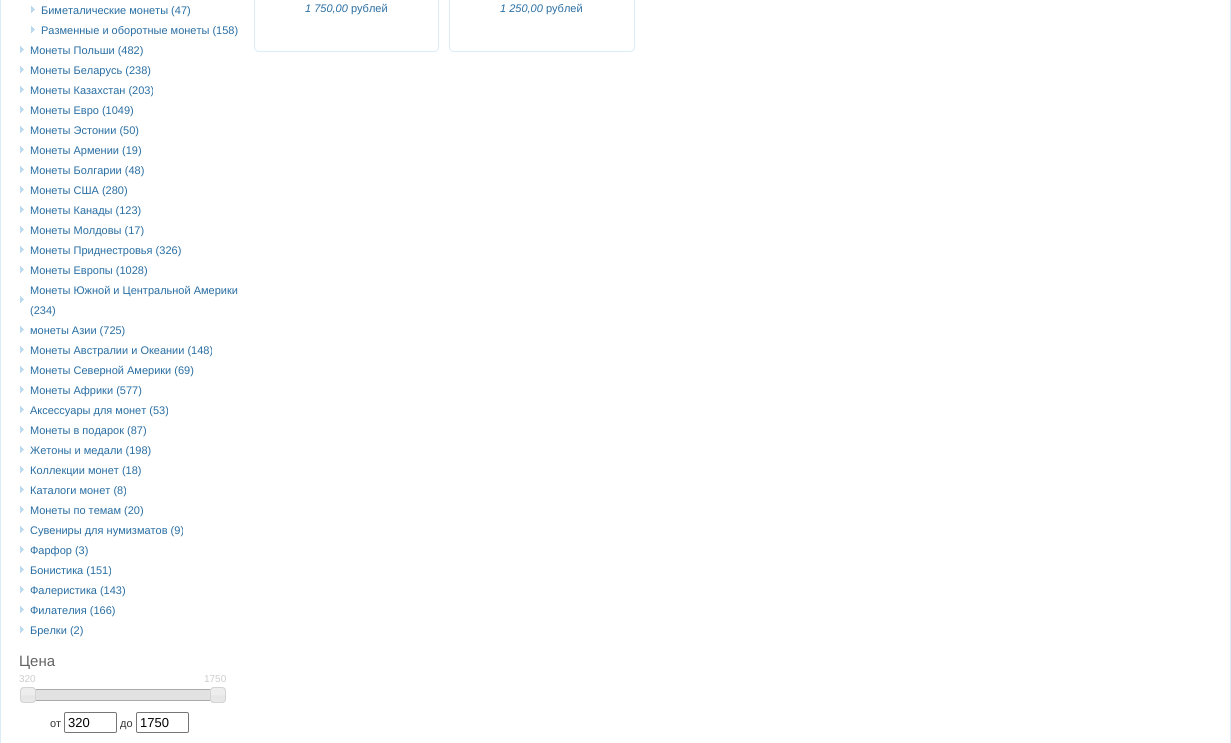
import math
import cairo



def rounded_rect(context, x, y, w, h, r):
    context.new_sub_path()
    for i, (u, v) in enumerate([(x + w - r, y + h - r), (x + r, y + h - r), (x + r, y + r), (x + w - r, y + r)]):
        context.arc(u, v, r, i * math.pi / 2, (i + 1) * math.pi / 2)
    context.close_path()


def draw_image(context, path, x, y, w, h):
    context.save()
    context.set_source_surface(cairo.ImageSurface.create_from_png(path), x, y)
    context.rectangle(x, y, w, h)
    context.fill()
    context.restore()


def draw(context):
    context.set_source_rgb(1, 1, 1)
    context.paint()
    context.set_source_rgb(220 / 255, 236 / 255, 247 / 255)
    context.rectangle(1230, 0, 1, 743)
    context.fill()
    context.rectangle(0, 0, 1, 743)
    context.fill()
    draw_image(context, "images/1.png", 31, 6, 4, 7)
    draw_image(context, "images/1.png", 31, 26, 4, 7)
    draw_image(context, "images/1.png", 20, 46, 4, 7)
    draw_image(context, "images/1.png", 20, 66, 4, 7)
    draw_image(context, "images/1.png", 20, 86, 4, 7)
    draw_image(context, "images/1.png", 20, 106, 4, 7)
    draw_image(context, "images/1.png", 20, 126, 4, 7)
    draw_image(context, "images/1.png", 20, 146, 4, 7)
    draw_image(context, "images/1.png", 20, 166, 4, 7)
    draw_image(context, "images/1.png", 20, 186, 4, 7)
    draw_image(context, "images/1.png", 20, 206, 4, 7)
    draw_image(context, "images/1.png", 20, 226, 4, 7)
    draw_image(context, "images/1.png", 20, 246, 4, 7)
    draw_image(context, "images/1.png", 20, 266, 4, 7)
    draw_image(context, "images/1.png", 20, 296, 4, 7)
    draw_image(context, "images/1.png", 20, 326, 4, 7)
    draw_image(context, "images/1.png", 20, 346, 4, 7)
    draw_image(context, "images/1.png", 20, 366, 4, 7)
    draw_image(context, "images/1.png", 20, 386, 4, 7)
    draw_image(context, "images/1.png", 20, 406, 4, 7)
    draw_image(context, "images/1.png", 20, 426, 4, 7)
    draw_image(context, "images/1.png", 20, 446, 4, 7)
    draw_image(context, "images/1.png", 20, 466, 4, 7)
    draw_image(context, "images/1.png", 20, 486, 4, 7)
    draw_image(context, "images/1.png", 20, 506, 4, 7)
    draw_image(context, "images/1.png", 20, 526, 4, 7)
    draw_image(context, "images/1.png", 20, 546, 4, 7)
    draw_image(context, "images/1.png", 20, 566, 4, 7)
    draw_image(context, "images/1.png", 20, 586, 4, 7)
    draw_image(context, "images/1.png", 20, 606, 4, 7)
    draw_image(context, "images/1.png", 20, 626, 4, 7)
    context.rectangle(26.5, 689.5, 191, 11)
    context.set_source_rgb(170 / 255, 170 / 255, 170 / 255)
    context.set_line_width(1)
    context.stroke()
    context.set_source_rgb(226 / 255, 226 / 255, 226 / 255)
    context.rectangle(35, 690, 176, 10)
    context.fill()
    draw_image(context, "images/2.png", 20, 687, 16, 16)
    rounded_rect(context, 20.5, 687.5, 15, 15, 3.5)
    context.set_source_rgb(211 / 255, 211 / 255, 211 / 255)
    context.stroke()
    draw_image(context, "images/3.png", 210, 687, 16, 16)
    rounded_rect(context, 210.5, 687.5, 15, 15, 3.5)
    context.stroke()
    rounded_rect(context, 64.5, 712.5, 52, 20, 1.5)
    context.set_source_rgb(118 / 255, 118 / 255, 118 / 255)
    context.stroke()
    rounded_rect(context, 136.5, 712.5, 52, 20, 1.5)
    context.stroke()
    rounded_rect(context, 254.5, -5.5, 184, 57, 4.5)
    context.set_source_rgb(220 / 255, 236 / 255, 247 / 255)
    context.stroke()
    rounded_rect(context, 449.5, -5.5, 185, 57, 4.5)
    context.stroke()
    context.select_font_face("Liberation Sans")
    context.set_font_size(11)
    context.set_source_rgb(40 / 255, 109 / 255, 162 / 255)
    context.move_to(41, 14)
    context.show_text("Биметалические монеты (47)")
    context.move_to(41, 34)
    context.show_text("Разменные и оборотные монеты (158)")
    context.move_to(30, 54)
    context.show_text("Монеты Польши (482)")
    context.move_to(30, 74)
    context.show_text("Монеты Беларусь (238)")
    context.move_to(30, 94)
    context.show_text("Монеты Казахстан (203)")
    context.move_to(30, 114)
    context.show_text("Монеты Eвро (1049)")
    context.move_to(30, 134)
    context.show_text("Монеты Эстонии (50)")
    context.move_to(30, 154)
    context.show_text("Монеты Армении (19)")
    context.move_to(30, 174)
    context.show_text("Монеты Болгарии (48)")
    context.move_to(30, 194)
    context.show_text("Монеты США (280)")
    context.move_to(30, 214)
    context.show_text("Монеты Канады (123)")
    context.move_to(30, 234)
    context.show_text("Монеты Молдовы (17)")
    context.move_to(30, 254)
    context.show_text("Монеты Приднестровья (326)")
    context.move_to(30, 274)
    context.show_text("Монеты Европы (1028)")
    context.move_to(30, 294)
    context.show_text("Монеты Южной и Центральной Америки")
    context.move_to(30, 314)
    context.show_text("(234)")
    context.move_to(30, 334)
    context.show_text("монеты Азии (725)")
    context.move_to(30, 354)
    context.show_text("Монеты Австралии и Океании (148)")
    context.move_to(30, 374)
    context.show_text("Монеты Северной Америки (69)")
    context.move_to(30, 394)
    context.show_text("Монеты Африки (577)")
    context.move_to(30, 414)
    context.show_text("Аксессуары для монет (53)")
    context.move_to(30, 434)
    context.show_text("Монеты в подарок (87)")
    context.move_to(30, 454)
    context.show_text("Жетоны и медали (198)")
    context.move_to(30, 474)
    context.show_text("Коллекции монет (18)")
    context.move_to(30, 494)
    context.show_text("Каталоги монет (8)")
    context.move_to(30, 514)
    context.show_text("Монеты по темам (20)")
    context.move_to(30, 534)
    context.show_text("Сувениры для нумизматов (9)")
    context.move_to(30, 554)
    context.show_text("Фарфор (3)")
    context.move_to(30, 574)
    context.show_text("Бонистика (151)")
    context.move_to(30, 594)
    context.show_text("Фалеристика (143)")
    context.move_to(30, 614)
    context.show_text("Филателия (166)")
    context.move_to(30, 634)
    context.show_text("Брелки (2)")
    context.set_font_size(15)
    context.set_source_rgb(99 / 255, 99 / 255, 99 / 255)
    context.move_to(19, 666)
    context.show_text("Цена")
    context.set_font_size(10)
    context.set_source_rgb(204 / 255, 204 / 255, 204 / 255)
    context.move_to(19, 682)
    context.show_text("320")
    context.move_to(204, 682)
    context.show_text("1750")
    context.set_font_size(11)
    context.set_source_rgb(51 / 255, 51 / 255, 51 / 255)
    context.move_to(50, 727)
    context.show_text("от")
    context.set_font_size(13)
    context.set_source_rgb(0, 0, 0)
    context.move_to(68, 727)
    context.show_text("320")
    context.set_font_size(11)
    context.set_source_rgb(51 / 255, 51 / 255, 51 / 255)
    context.move_to(120, 727)
    context.show_text("до")
    context.set_font_size(13)
    context.set_source_rgb(0, 0, 0)
    context.move_to(140, 727)
    context.show_text("1750")
    context.select_font_face("Liberation Sans", cairo.FontSlant.ITALIC)
    context.set_font_size(11)
    context.set_source_rgb(40 / 255, 109 / 255, 162 / 255)
    context.move_to(305, 12)
    context.show_text("1 750,00")
    context.select_font_face("Liberation Sans")
    context.move_to(351, 12)
    context.show_text("рублей")
    context.select_font_face("Liberation Sans", cairo.FontSlant.ITALIC)
    context.move_to(500, 12)
    context.show_text("1 250,00")
    context.select_font_face("Liberation Sans")
    context.move_to(546, 12)
    context.show_text("рублей")


surface = cairo.ImageSurface(cairo.Format.RGB24, 1231, 743)
context = cairo.Context(surface)
options = cairo.FontOptions()
options.set_hint_metrics(cairo.HintMetrics.OFF)
options.set_hint_style(cairo.HintStyle.NONE)
context.set_font_options(options)
context.set_miter_limit(4)
draw(context)
surface.write_to_png("out.png")
